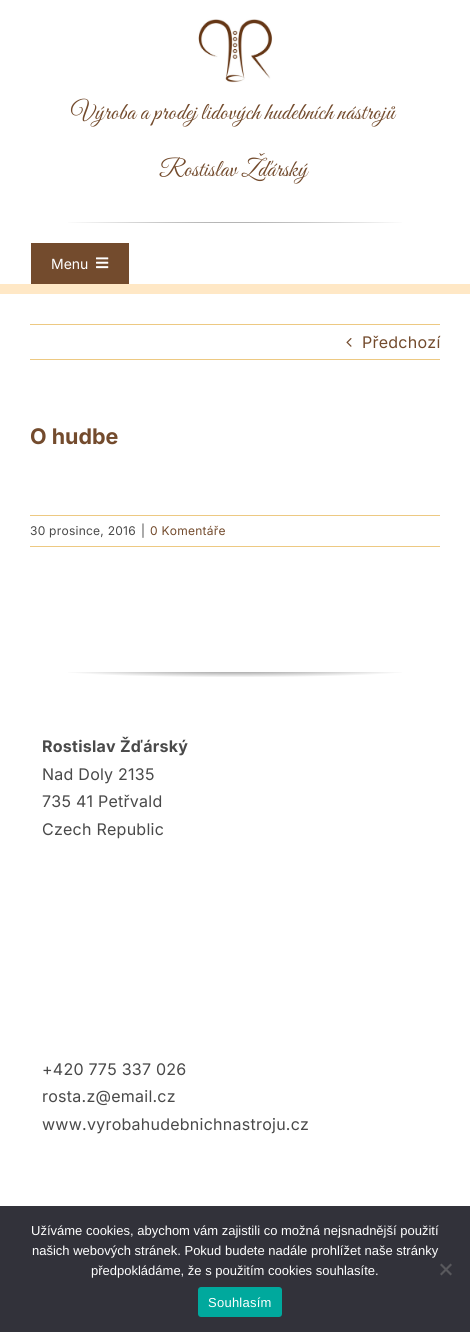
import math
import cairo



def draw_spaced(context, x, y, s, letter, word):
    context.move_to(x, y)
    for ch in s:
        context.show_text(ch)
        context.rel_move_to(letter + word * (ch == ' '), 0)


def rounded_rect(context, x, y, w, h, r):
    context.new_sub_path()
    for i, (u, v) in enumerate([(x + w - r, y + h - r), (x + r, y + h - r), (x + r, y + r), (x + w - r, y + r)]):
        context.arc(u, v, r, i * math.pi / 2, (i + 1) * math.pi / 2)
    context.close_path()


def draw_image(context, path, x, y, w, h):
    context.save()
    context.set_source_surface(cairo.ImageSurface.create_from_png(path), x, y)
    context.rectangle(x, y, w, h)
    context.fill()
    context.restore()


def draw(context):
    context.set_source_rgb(1, 1, 1)
    context.paint()
    draw_image(context, "images/1.png", 198, 19, 75, 64)
    gradient = cairo.RadialGradient(0, 0, 0, 0, 0, 1)
    gradient.set_matrix(cairo.Matrix(1 / 290, 0, 0, 1 / 13, -1 * 235 / 290, -1 * 219 / 13))
    gradient.add_color_stop_rgba(0, 128 / 255, 128 / 255, 128 / 255, 1)
    gradient.add_color_stop_rgba(0.65, 1, 1, 1, 1)
    context.set_source(gradient)
    context.rectangle(68, 222, 334, 1)
    context.fill()
    context.set_source_rgb(115 / 255, 75 / 255, 45 / 255)
    context.rectangle(31, 243, 98, 41)
    context.fill()
    draw_image(context, "images/2.png", 96, 257, 13, 12)
    context.set_source_rgb(1, 232 / 255, 198 / 255)
    context.rectangle(0, 284, 470, 10)
    context.fill()
    context.set_source_rgb(237 / 255, 201 / 255, 130 / 255)
    context.rectangle(30, 324, 410, 1)
    context.fill()
    context.rectangle(30, 359, 410, 1)
    context.fill()
    draw_image(context, "images/3.png", 346, 338, 6, 9)
    context.rectangle(30, 515, 410, 1)
    context.fill()
    context.rectangle(30, 546, 410, 1)
    context.fill()
    gradient = cairo.RadialGradient(0, 0, 0, 0, 0, 1)
    gradient.set_matrix(cairo.Matrix(1 / 290, 0, 0, 1 / 13, -1 * 235 / 290, -1 * 669 / 13))
    gradient.add_color_stop_rgba(0, 128 / 255, 128 / 255, 128 / 255, 1)
    gradient.add_color_stop_rgba(0.65, 1, 1, 1, 1)
    context.set_source(gradient)
    context.rectangle(68, 672, 334, 5)
    context.fill()
    context.set_source_rgb(50 / 255, 50 / 255, 58 / 255)
    context.rectangle(0, 1206, 470, 126)
    context.fill()
    context.set_source_rgb(89 / 255, 89 / 255, 93 / 255)
    context.new_path()
    context.move_to(450.5, 1263.5)
    context.line_to(452, 1265)
    context.line_to(441.5, 1275.5)
    context.line_to(440, 1274)
    context.close_path()
    context.fill()
    context.new_path()
    context.move_to(440, 1265)
    context.line_to(441.5, 1263.5)
    context.line_to(452, 1274)
    context.line_to(450.5, 1275.5)
    context.close_path()
    context.fill()
    context.set_source_rgb(0, 169 / 255, 157 / 255)
    rounded_rect(context, 198, 1287, 84, 30, 3)
    context.fill()
    context.select_font_face("Great Vibes")
    context.set_font_size(24)
    context.set_source_rgb(115 / 255, 75 / 255, 45 / 255)
    draw_spaced(context, 71, 119, "Výroba a prodej lidových hudebních nástrojů", 0.25, 0)
    draw_spaced(context, 159, 176, "Rostislav Žďárský", 0.25, 0)
    context.select_font_face("Inter")
    context.set_font_size(14)
    context.set_source_rgb(1, 1, 1)
    context.move_to(51, 269)
    context.show_text("Menu")
    context.set_font_size(16)
    context.set_source_rgb(115 / 255, 75 / 255, 45 / 255)
    draw_spaced(context, 362, 348, "Předchozí", 0.25, 0)
    context.select_font_face("Inter", cairo.FontSlant.NORMAL, cairo.FontWeight.BOLD)
    context.set_font_size(21.5)
    context.move_to(30, 444)
    context.show_text("O hudbe")
    context.select_font_face("Inter")
    context.set_font_size(12)
    context.set_source_rgb(73 / 255, 73 / 255, 73 / 255)
    draw_spaced(context, 30, 535, "30 prosince, 2016", 0.25, 0)
    draw_spaced(context, 141, 535, "|", 0.25, 0)
    context.set_source_rgb(115 / 255, 75 / 255, 45 / 255)
    draw_spaced(context, 150, 535, "0 Komentáře", 0.25, 0)
    context.select_font_face("Inter", cairo.FontSlant.NORMAL, cairo.FontWeight.BOLD)
    context.set_font_size(16)
    context.set_source_rgb(73 / 255, 73 / 255, 73 / 255)
    draw_spaced(context, 42, 752, "Rostislav Žďárský", 0.25, 0)
    context.select_font_face("Inter")
    draw_spaced(context, 42, 780, "Nad Doly 2135", 0.25, 0)
    draw_spaced(context, 42, 807, "735 41 Petřvald", 0.25, 0)
    draw_spaced(context, 42, 835, "Czech Republic", 0.25, 0)
    draw_spaced(context, 42, 1075, "+420 775 337 026", 0.25, 0)
    draw_spaced(context, 42, 1102, "rosta.z@email.cz", 0.25, 0)
    draw_spaced(context, 42, 1130, "www.vyrobahudebnichnastroju.cz", 0.25, 0)
    context.select_font_face("Liberation Sans")
    context.set_font_size(13)
    context.set_source_rgb(1, 1, 1)
    context.move_to(31, 1235)
    context.show_text("Užíváme cookies, abychom vám zajistili co možná nejsnadnější použití")
    context.move_to(32, 1255)
    context.show_text("našich webových stránek. Pokud budete nadále prohlížet naše stránky")
    context.move_to(91, 1275)
    context.show_text("předpokládáme, že s použitím cookies souhlasíte.")
    draw_spaced(context, 208, 1307, "Souhlasím", 0.25, 0)


surface = cairo.ImageSurface(cairo.Format.RGB24, 470, 1332)
context = cairo.Context(surface)
options = cairo.FontOptions()
options.set_hint_metrics(cairo.HintMetrics.OFF)
options.set_hint_style(cairo.HintStyle.NONE)
context.set_font_options(options)
context.set_miter_limit(4)
draw(context)
surface.write_to_png("out.png")
